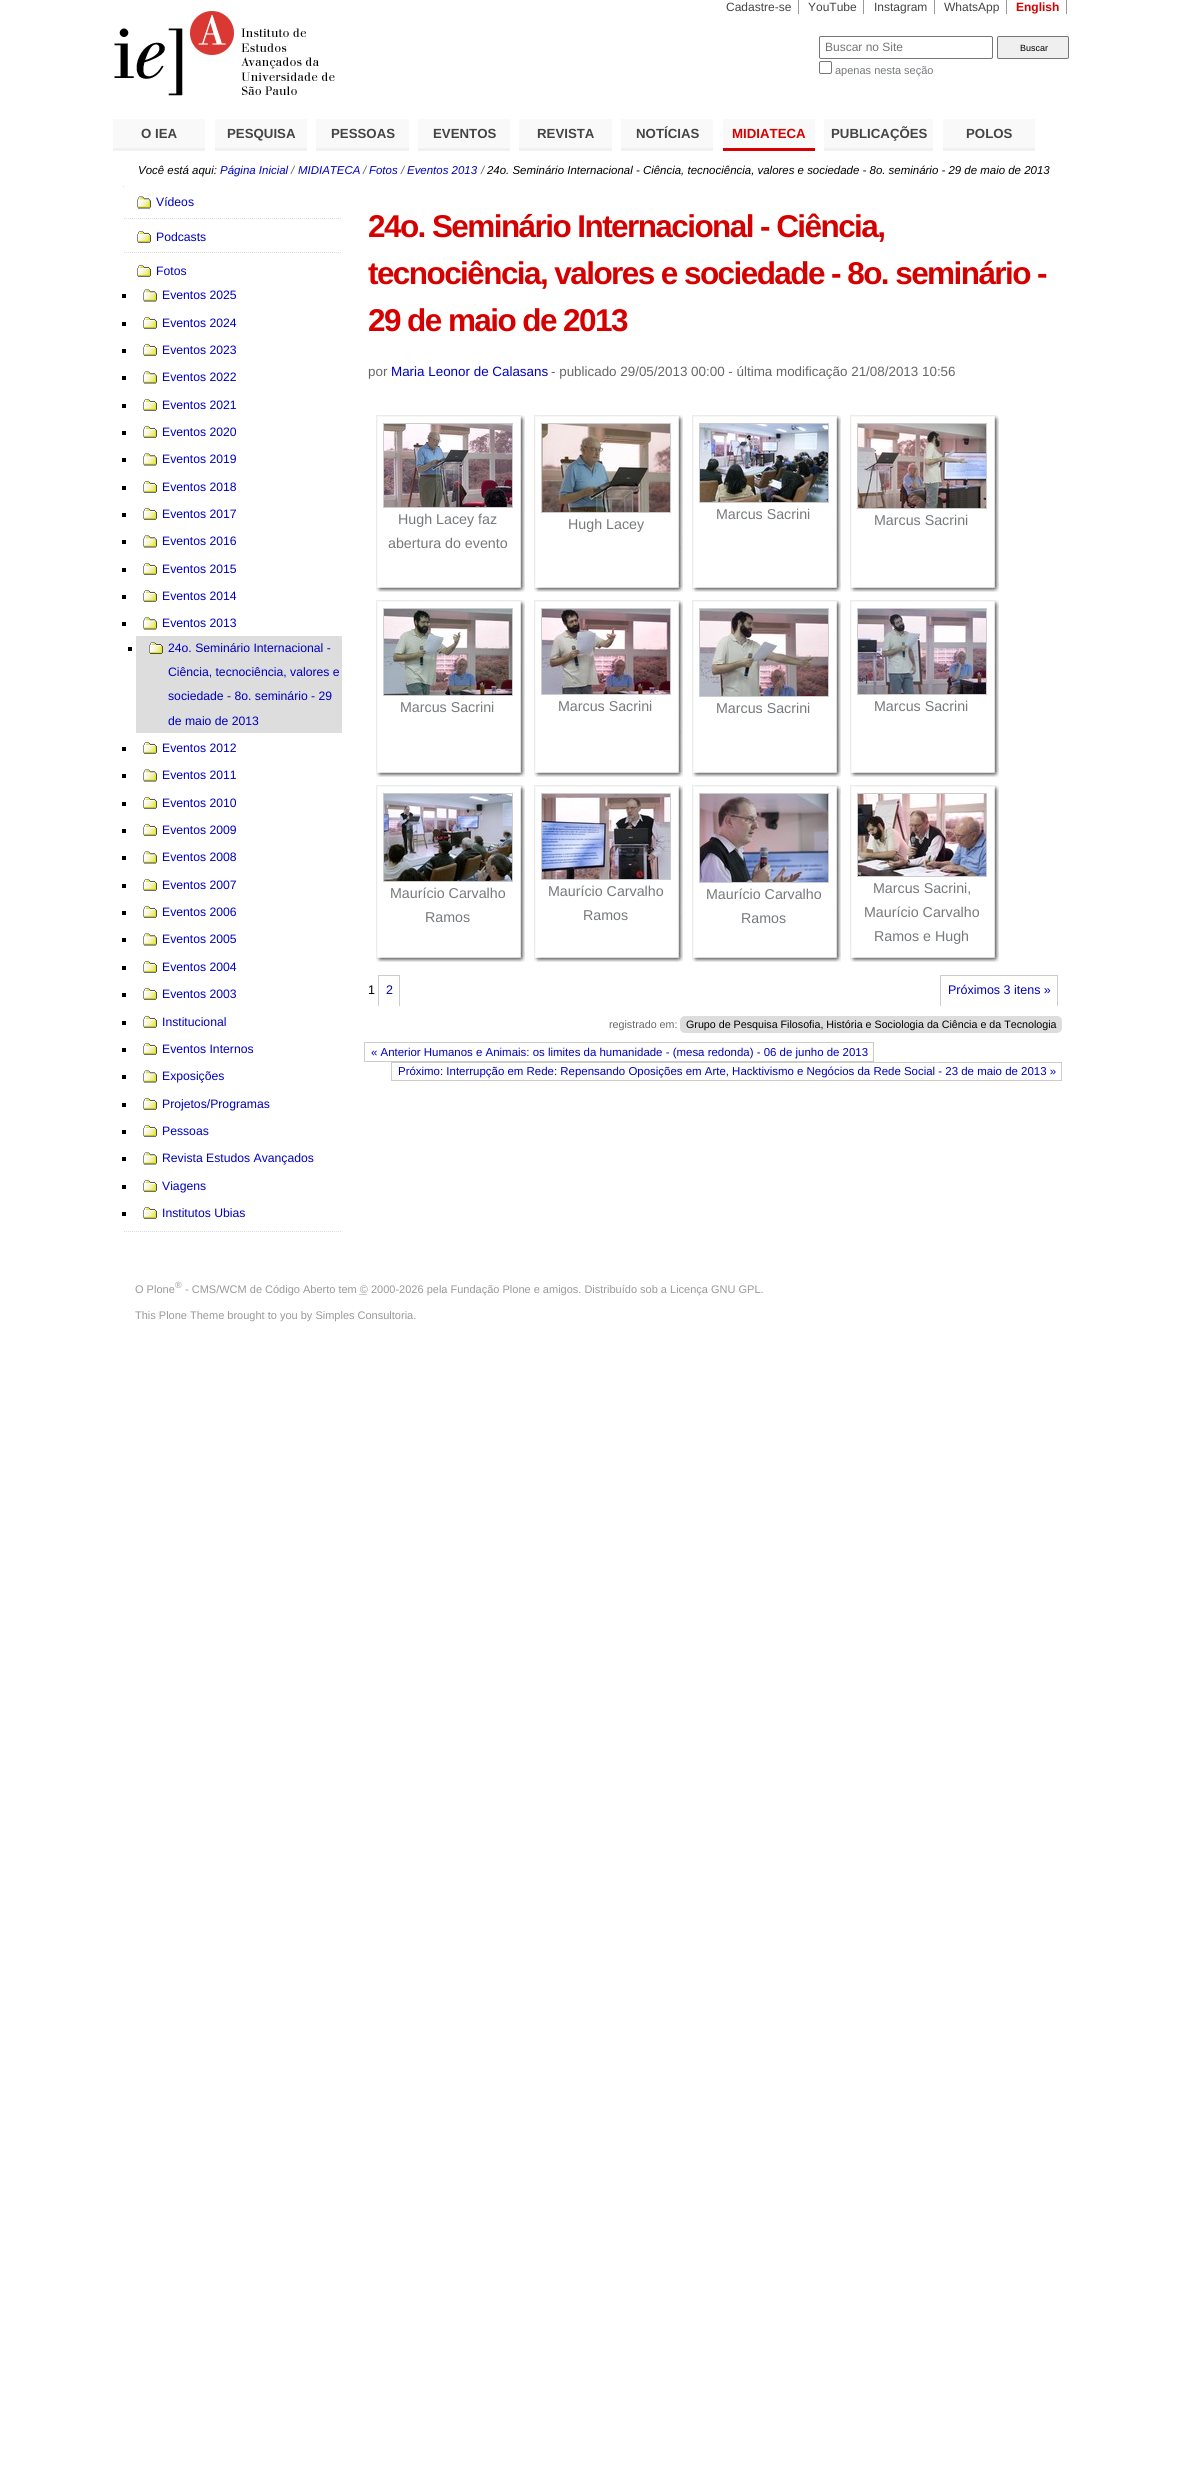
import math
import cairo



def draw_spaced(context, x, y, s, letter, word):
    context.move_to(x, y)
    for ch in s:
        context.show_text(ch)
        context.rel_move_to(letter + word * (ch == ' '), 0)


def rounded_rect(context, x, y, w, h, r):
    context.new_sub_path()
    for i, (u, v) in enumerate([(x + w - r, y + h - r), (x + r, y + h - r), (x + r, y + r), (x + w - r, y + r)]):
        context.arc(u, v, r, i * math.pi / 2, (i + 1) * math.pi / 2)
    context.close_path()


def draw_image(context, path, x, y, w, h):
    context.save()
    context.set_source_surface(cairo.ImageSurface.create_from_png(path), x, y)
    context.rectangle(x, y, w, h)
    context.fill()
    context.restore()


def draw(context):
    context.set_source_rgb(1, 1, 1)
    context.paint()
    context.set_source_rgb(153 / 255, 153 / 255, 153 / 255)
    context.rectangle(798, 0, 1, 14)
    context.fill()
    context.rectangle(863, 0, 1, 14)
    context.fill()
    context.rectangle(934, 0, 1, 14)
    context.fill()
    context.rectangle(1006, 0, 1, 14)
    context.fill()
    context.rectangle(1066, 0, 1, 14)
    context.fill()
    draw_image(context, "images/1.png", 114, 11, 221, 85)
    rounded_rect(context, 819.5, 36.5, 173, 22, 1.5)
    context.set_source_rgb(118 / 255, 118 / 255, 118 / 255)
    context.set_line_width(1)
    context.stroke()
    context.set_source_rgb(239 / 255, 239 / 255, 239 / 255)
    rounded_rect(context, 997.5, 36.5, 71, 22, 1.5)
    context.fill_preserve()
    context.set_source_rgb(118 / 255, 118 / 255, 118 / 255)
    context.stroke()
    rounded_rect(context, 819.5, 61.5, 12, 12, 1.5)
    context.stroke()
    context.set_source_rgb(249 / 255, 249 / 255, 249 / 255)
    context.rectangle(113, 119, 92, 29)
    context.fill()
    context.set_source_rgb(241 / 255, 241 / 255, 241 / 255)
    context.rectangle(113, 148, 92, 3)
    context.fill()
    context.set_source_rgb(249 / 255, 249 / 255, 249 / 255)
    context.rectangle(215, 119, 92, 29)
    context.fill()
    context.set_source_rgb(241 / 255, 241 / 255, 241 / 255)
    context.rectangle(215, 148, 92, 3)
    context.fill()
    context.set_source_rgb(249 / 255, 249 / 255, 249 / 255)
    context.rectangle(316, 119, 93, 29)
    context.fill()
    context.set_source_rgb(241 / 255, 241 / 255, 241 / 255)
    context.rectangle(316, 148, 93, 3)
    context.fill()
    context.set_source_rgb(249 / 255, 249 / 255, 249 / 255)
    context.rectangle(418, 119, 92, 29)
    context.fill()
    context.set_source_rgb(241 / 255, 241 / 255, 241 / 255)
    context.rectangle(418, 148, 92, 3)
    context.fill()
    context.set_source_rgb(249 / 255, 249 / 255, 249 / 255)
    context.rectangle(519, 119, 93, 29)
    context.fill()
    context.set_source_rgb(241 / 255, 241 / 255, 241 / 255)
    context.rectangle(519, 148, 93, 3)
    context.fill()
    context.set_source_rgb(249 / 255, 249 / 255, 249 / 255)
    context.rectangle(621, 119, 92, 29)
    context.fill()
    context.set_source_rgb(241 / 255, 241 / 255, 241 / 255)
    context.rectangle(621, 148, 92, 3)
    context.fill()
    context.set_source_rgb(249 / 255, 249 / 255, 249 / 255)
    context.rectangle(723, 119, 92, 29)
    context.fill()
    context.set_source_rgb(213 / 255, 0, 0)
    context.rectangle(723, 148, 92, 3)
    context.fill()
    context.set_source_rgb(249 / 255, 249 / 255, 249 / 255)
    context.rectangle(824, 119, 109, 29)
    context.fill()
    context.set_source_rgb(241 / 255, 241 / 255, 241 / 255)
    context.rectangle(824, 148, 109, 3)
    context.fill()
    context.set_source_rgb(249 / 255, 249 / 255, 249 / 255)
    context.rectangle(943, 119, 92, 29)
    context.fill()
    context.set_source_rgb(241 / 255, 241 / 255, 241 / 255)
    context.rectangle(943, 148, 92, 3)
    context.fill()
    context.set_source_rgb(221 / 255, 221 / 255, 221 / 255)
    context.rectangle(123, 186, 1, 1)
    context.fill()
    context.new_path()
    context.move_to(124, 218.5)
    context.line_to(342, 218.5)
    context.set_dash([1, 1])
    context.stroke()
    draw_image(context, "images/2.png", 137, 196, 14, 13)
    context.new_path()
    context.move_to(124, 252.5)
    context.line_to(342, 252.5)
    context.stroke()
    draw_image(context, "images/3.png", 137, 230, 14, 13)
    context.new_path()
    context.move_to(124, 1231.5)
    context.line_to(342, 1231.5)
    context.stroke()
    draw_image(context, "images/3.png", 137, 264, 14, 13)
    context.set_source_rgb(0, 0, 0)
    context.rectangle(122, 294, 4, 4)
    context.fill()
    draw_image(context, "images/2.png", 143, 289, 14, 13)
    context.rectangle(122, 322, 4, 4)
    context.fill()
    draw_image(context, "images/3.png", 143, 316, 14, 13)
    context.rectangle(122, 349, 4, 4)
    context.fill()
    draw_image(context, "images/3.png", 143, 343, 14, 13)
    context.rectangle(122, 376, 4, 4)
    context.fill()
    draw_image(context, "images/2.png", 143, 371, 14, 13)
    context.rectangle(122, 404, 4, 4)
    context.fill()
    draw_image(context, "images/3.png", 143, 398, 14, 13)
    context.rectangle(122, 431, 4, 4)
    context.fill()
    draw_image(context, "images/3.png", 143, 425, 14, 13)
    context.rectangle(122, 458, 4, 4)
    context.fill()
    draw_image(context, "images/2.png", 143, 453, 14, 13)
    context.rectangle(122, 486, 4, 4)
    context.fill()
    draw_image(context, "images/3.png", 143, 480, 14, 13)
    context.rectangle(122, 513, 4, 4)
    context.fill()
    draw_image(context, "images/3.png", 143, 507, 14, 13)
    context.rectangle(122, 540, 4, 4)
    context.fill()
    draw_image(context, "images/2.png", 143, 535, 14, 13)
    context.rectangle(122, 568, 4, 4)
    context.fill()
    draw_image(context, "images/3.png", 143, 562, 14, 13)
    context.rectangle(122, 595, 4, 4)
    context.fill()
    draw_image(context, "images/3.png", 143, 589, 14, 13)
    context.rectangle(122, 622, 4, 4)
    context.fill()
    draw_image(context, "images/2.png", 143, 617, 14, 13)
    context.rectangle(128, 647, 4, 4)
    context.fill()
    context.set_source_rgb(221 / 255, 221 / 255, 221 / 255)
    context.rectangle(136, 636, 206, 97)
    context.fill()
    draw_image(context, "images/4.png", 149, 642, 14, 12)
    context.set_source_rgb(0, 0, 0)
    context.rectangle(122, 747, 4, 4)
    context.fill()
    draw_image(context, "images/3.png", 143, 741, 14, 13)
    context.rectangle(122, 774, 4, 4)
    context.fill()
    draw_image(context, "images/2.png", 143, 769, 14, 13)
    context.rectangle(122, 802, 4, 4)
    context.fill()
    draw_image(context, "images/3.png", 143, 796, 14, 13)
    context.rectangle(122, 829, 4, 4)
    context.fill()
    draw_image(context, "images/3.png", 143, 823, 14, 13)
    context.rectangle(122, 856, 4, 4)
    context.fill()
    draw_image(context, "images/2.png", 143, 851, 14, 13)
    context.rectangle(122, 884, 4, 4)
    context.fill()
    draw_image(context, "images/3.png", 143, 878, 14, 13)
    context.rectangle(122, 911, 4, 4)
    context.fill()
    draw_image(context, "images/3.png", 143, 905, 14, 13)
    context.rectangle(122, 938, 4, 4)
    context.fill()
    draw_image(context, "images/2.png", 143, 933, 14, 13)
    context.rectangle(122, 966, 4, 4)
    context.fill()
    draw_image(context, "images/3.png", 143, 960, 14, 13)
    context.rectangle(122, 993, 4, 4)
    context.fill()
    draw_image(context, "images/3.png", 143, 987, 14, 13)
    context.rectangle(122, 1021, 4, 4)
    context.fill()
    draw_image(context, "images/3.png", 143, 1015, 14, 13)
    context.rectangle(122, 1048, 4, 4)
    context.fill()
    draw_image(context, "images/3.png", 143, 1042, 14, 13)
    context.rectangle(122, 1075, 4, 4)
    context.fill()
    draw_image(context, "images/2.png", 143, 1070, 14, 13)
    context.rectangle(122, 1103, 4, 4)
    context.fill()
    draw_image(context, "images/3.png", 143, 1097, 14, 13)
    context.rectangle(122, 1130, 4, 4)
    context.fill()
    draw_image(context, "images/3.png", 143, 1124, 14, 13)
    context.rectangle(122, 1157, 4, 4)
    context.fill()
    draw_image(context, "images/2.png", 143, 1152, 14, 13)
    context.rectangle(122, 1185, 4, 4)
    context.fill()
    draw_image(context, "images/3.png", 143, 1179, 14, 13)
    context.rectangle(122, 1212, 4, 4)
    context.fill()
    draw_image(context, "images/3.png", 143, 1206, 14, 13)
    draw_image(context, "images/5.png", 376, 415, 149, 177)
    context.rectangle(383.5, 423.5, 129, 84)
    context.set_source_rgb(204 / 255, 204 / 255, 204 / 255)
    context.set_dash([])
    context.stroke()
    draw_image(context, "images/6.png", 384, 424, 128, 83)
    draw_image(context, "images/5.png", 534, 415, 149, 177)
    context.rectangle(541.5, 423.5, 129, 89)
    context.stroke()
    draw_image(context, "images/7.png", 542, 424, 128, 88)
    draw_image(context, "images/5.png", 692, 415, 149, 177)
    context.rectangle(699.5, 423.5, 129, 79)
    context.stroke()
    draw_image(context, "images/8.png", 700, 424, 128, 78)
    draw_image(context, "images/5.png", 850, 415, 149, 177)
    context.rectangle(857.5, 423.5, 129, 85)
    context.stroke()
    draw_image(context, "images/9.png", 858, 424, 128, 84)
    draw_image(context, "images/5.png", 376, 600, 149, 177)
    context.rectangle(383.5, 608.5, 129, 87)
    context.stroke()
    draw_image(context, "images/10.png", 384, 609, 128, 86)
    draw_image(context, "images/5.png", 534, 600, 149, 177)
    context.rectangle(541.5, 608.5, 129, 86)
    context.stroke()
    draw_image(context, "images/11.png", 542, 609, 128, 85)
    draw_image(context, "images/5.png", 692, 600, 149, 177)
    context.rectangle(699.5, 608.5, 129, 88)
    context.stroke()
    draw_image(context, "images/12.png", 700, 609, 128, 87)
    draw_image(context, "images/5.png", 850, 600, 149, 177)
    context.rectangle(857.5, 608.5, 129, 86)
    context.stroke()
    draw_image(context, "images/13.png", 858, 609, 128, 85)
    draw_image(context, "images/5.png", 376, 785, 149, 177)
    context.rectangle(383.5, 793.5, 129, 88)
    context.stroke()
    draw_image(context, "images/14.png", 384, 794, 128, 87)
    draw_image(context, "images/5.png", 534, 785, 149, 177)
    context.rectangle(541.5, 793.5, 129, 86)
    context.stroke()
    draw_image(context, "images/15.png", 542, 794, 128, 85)
    draw_image(context, "images/5.png", 692, 785, 149, 177)
    context.rectangle(699.5, 793.5, 129, 89)
    context.stroke()
    draw_image(context, "images/16.png", 700, 794, 128, 88)
    draw_image(context, "images/5.png", 850, 785, 149, 177)
    context.rectangle(857.5, 793.5, 129, 83)
    context.stroke()
    draw_image(context, "images/17.png", 858, 794, 128, 82)
    context.rectangle(378, 975, 22, 1)
    context.fill()
    context.rectangle(399, 975, 1, 31)
    context.fill()
    context.rectangle(378, 975, 1, 31)
    context.fill()
    context.rectangle(940, 975, 118, 1)
    context.fill()
    context.rectangle(1057, 975, 1, 31)
    context.fill()
    context.rectangle(940, 975, 1, 31)
    context.fill()
    context.set_source_rgb(221 / 255, 221 / 255, 221 / 255)
    rounded_rect(context, 680, 1016, 382, 17, 5)
    context.fill()
    context.rectangle(364.5, 1042.5, 509, 19)
    context.set_source_rgb(204 / 255, 204 / 255, 204 / 255)
    context.stroke()
    context.rectangle(391.5, 1062.5, 670, 18)
    context.stroke()
    context.new_path()
    context.move_to(359.5, 1294.5)
    context.line_to(367.5, 1294.5)
    context.set_source_rgb(153 / 255, 153 / 255, 153 / 255)
    context.set_dash([1, 1])
    context.stroke()
    context.select_font_face("Liberation Sans")
    context.set_font_size(12)
    context.set_source_rgb(68 / 255, 68 / 255, 68 / 255)
    context.move_to(726, 11)
    context.show_text("Cadastre-se")
    context.move_to(808, 11)
    context.show_text("YouTube")
    context.move_to(874, 11)
    context.show_text("Instagram")
    context.move_to(944, 11)
    context.show_text("WhatsApp")
    context.select_font_face("Liberation Sans", cairo.FontSlant.NORMAL, cairo.FontWeight.BOLD)
    context.set_source_rgb(213 / 255, 0, 0)
    context.move_to(1016, 11)
    context.show_text("English")
    context.select_font_face("Liberation Sans")
    context.set_source_rgb(117 / 255, 117 / 255, 117 / 255)
    context.move_to(825, 51)
    context.show_text("Buscar no Site")
    context.set_font_size(9)
    context.set_source_rgb(0, 0, 0)
    context.move_to(1020, 51)
    context.show_text("Buscar")
    context.set_font_size(11)
    context.set_source_rgb(118 / 255, 121 / 255, 124 / 255)
    context.move_to(835, 74)
    context.show_text("apenas nesta seção")
    context.select_font_face("Liberation Sans", cairo.FontSlant.NORMAL, cairo.FontWeight.BOLD)
    context.set_font_size(13.25)
    context.set_source_rgb(68 / 255, 68 / 255, 68 / 255)
    context.move_to(141, 138)
    context.show_text("O IEA")
    context.move_to(227, 138)
    context.show_text("PESQUISA")
    context.move_to(331, 138)
    context.show_text("PESSOAS")
    context.move_to(433, 138)
    context.show_text("EVENTOS")
    context.move_to(537, 138)
    context.show_text("REVISTA")
    context.move_to(636, 138)
    context.show_text("NOTÍCIAS")
    context.set_source_rgb(213 / 255, 0, 0)
    context.move_to(732, 138)
    context.show_text("MIDIATECA")
    context.set_source_rgb(68 / 255, 68 / 255, 68 / 255)
    context.move_to(831, 138)
    context.show_text("PUBLICAÇÕES")
    context.move_to(966, 138)
    context.show_text("POLOS")
    context.select_font_face("Liberation Sans", cairo.FontSlant.ITALIC)
    context.set_font_size(11.45)
    context.set_source_rgb(0, 0, 0)
    context.move_to(138, 174)
    context.show_text("Você está aqui:")
    context.set_source_rgb(0, 0, 192 / 255)
    context.move_to(220, 174)
    context.show_text("Página Inicial")
    context.set_source_rgb(102 / 255, 102 / 255, 102 / 255)
    context.move_to(291, 174)
    context.show_text("/")
    context.set_source_rgb(0, 0, 192 / 255)
    context.move_to(298, 174)
    context.show_text("MIDIATECA")
    context.set_source_rgb(102 / 255, 102 / 255, 102 / 255)
    context.move_to(363, 174)
    context.show_text("/")
    context.set_source_rgb(0, 0, 192 / 255)
    context.move_to(369, 174)
    context.show_text("Fotos")
    context.set_source_rgb(102 / 255, 102 / 255, 102 / 255)
    context.move_to(401, 174)
    context.show_text("/")
    context.set_source_rgb(0, 0, 192 / 255)
    context.move_to(407, 174)
    context.show_text("Eventos 2013")
    context.set_source_rgb(102 / 255, 102 / 255, 102 / 255)
    context.move_to(481, 174)
    context.show_text("/")
    context.set_source_rgb(0, 0, 0)
    context.move_to(487, 174)
    context.show_text("24o. Seminário Internacional - Ciência, tecnociência, valores e sociedade - 8o. seminário - 29 de maio de 2013")
    context.select_font_face("Liberation Sans")
    context.set_font_size(12.2)
    context.set_source_rgb(0, 0, 192 / 255)
    context.move_to(156, 206)
    context.show_text("Vídeos")
    context.move_to(156, 241)
    context.show_text("Podcasts")
    context.move_to(156, 275)
    context.show_text("Fotos")
    context.move_to(162, 299)
    context.show_text("Eventos 2025")
    context.move_to(162, 327)
    context.show_text("Eventos 2024")
    context.move_to(162, 354)
    context.show_text("Eventos 2023")
    context.move_to(162, 381)
    context.show_text("Eventos 2022")
    context.move_to(162, 409)
    context.show_text("Eventos 2021")
    context.move_to(162, 436)
    context.show_text("Eventos 2020")
    context.move_to(162, 463)
    context.show_text("Eventos 2019")
    context.move_to(162, 491)
    context.show_text("Eventos 2018")
    context.move_to(162, 518)
    context.show_text("Eventos 2017")
    context.move_to(162, 545)
    context.show_text("Eventos 2016")
    context.move_to(162, 573)
    context.show_text("Eventos 2015")
    context.move_to(162, 600)
    context.show_text("Eventos 2014")
    context.move_to(162, 627)
    context.show_text("Eventos 2013")
    context.move_to(168, 652)
    context.show_text("24o. Seminário Internacional -")
    context.move_to(168, 676)
    context.show_text("Ciência, tecnociência, valores e")
    context.move_to(168, 700)
    context.show_text("sociedade - 8o. seminário - 29")
    context.move_to(168, 725)
    context.show_text("de maio de 2013")
    context.move_to(162, 752)
    context.show_text("Eventos 2012")
    context.move_to(162, 779)
    context.show_text("Eventos 2011")
    context.move_to(162, 807)
    context.show_text("Eventos 2010")
    context.move_to(162, 834)
    context.show_text("Eventos 2009")
    context.move_to(162, 861)
    context.show_text("Eventos 2008")
    context.move_to(162, 889)
    context.show_text("Eventos 2007")
    context.move_to(162, 916)
    context.show_text("Eventos 2006")
    context.move_to(162, 943)
    context.show_text("Eventos 2005")
    context.move_to(162, 971)
    context.show_text("Eventos 2004")
    context.move_to(162, 998)
    context.show_text("Eventos 2003")
    context.move_to(162, 1026)
    context.show_text("Institucional")
    context.move_to(162, 1053)
    context.show_text("Eventos Internos")
    context.move_to(162, 1080)
    context.show_text("Exposições")
    context.move_to(162, 1108)
    context.show_text("Projetos/Programas")
    context.move_to(162, 1135)
    context.show_text("Pessoas")
    context.move_to(162, 1162)
    context.show_text("Revista Estudos Avançados")
    context.move_to(162, 1190)
    context.show_text("Viagens")
    context.move_to(162, 1217)
    context.show_text("Institutos Ubias")
    context.select_font_face("Liberation Sans", cairo.FontSlant.NORMAL, cairo.FontWeight.BOLD)
    context.set_font_size(31.5)
    context.set_source_rgb(213 / 255, 0, 0)
    draw_spaced(context, 368, 237, "24o. Seminário Internacional - Ciência,", -1.57, 0)
    draw_spaced(context, 368, 284, "tecnociência, valores e sociedade - 8o. seminário -", -1.57, 0)
    draw_spaced(context, 368, 331, "29 de maio de 2013", -1.57, 0)
    context.select_font_face("Liberation Sans")
    context.set_font_size(13.4)
    context.set_source_rgb(102 / 255, 102 / 255, 102 / 255)
    context.move_to(368, 376)
    context.show_text("por")
    context.set_source_rgb(0, 0, 192 / 255)
    context.move_to(391, 376)
    context.show_text("Maria Leonor de Calasans")
    context.set_source_rgb(102 / 255, 102 / 255, 102 / 255)
    context.move_to(551, 376)
    context.show_text("- publicado 29/05/2013 00:00 - última modificação 21/08/2013 10:56")
    context.set_font_size(14.25)
    context.set_source_rgb(118 / 255, 121 / 255, 124 / 255)
    context.move_to(398, 524)
    context.show_text("Hugh Lacey faz")
    context.move_to(388, 548)
    context.show_text("abertura do evento")
    context.move_to(568, 529)
    context.show_text("Hugh Lacey")
    context.move_to(716, 519)
    context.show_text("Marcus Sacrini")
    context.move_to(874, 525)
    context.show_text("Marcus Sacrini")
    context.move_to(400, 712)
    context.show_text("Marcus Sacrini")
    context.move_to(558, 711)
    context.show_text("Marcus Sacrini")
    context.move_to(716, 713)
    context.show_text("Marcus Sacrini")
    context.move_to(874, 711)
    context.show_text("Marcus Sacrini")
    context.move_to(390, 898)
    context.show_text("Maurício Carvalho")
    context.move_to(425, 922)
    context.show_text("Ramos")
    context.move_to(548, 896)
    context.show_text("Maurício Carvalho")
    context.move_to(583, 920)
    context.show_text("Ramos")
    context.move_to(706, 899)
    context.show_text("Maurício Carvalho")
    context.move_to(741, 923)
    context.show_text("Ramos")
    context.move_to(873, 893)
    context.show_text("Marcus Sacrini,")
    context.move_to(864, 917)
    context.show_text("Maurício Carvalho")
    context.move_to(874, 941)
    context.show_text("Ramos e Hugh")
    context.set_font_size(12.5)
    context.set_source_rgb(0, 0, 0)
    context.move_to(368, 994)
    context.show_text("1")
    context.set_source_rgb(0, 0, 192 / 255)
    context.move_to(386, 994)
    context.show_text("2")
    context.move_to(948, 994)
    context.show_text("Próximos 3 itens »")
    context.set_font_size(10.7)
    context.set_source_rgb(102 / 255, 102 / 255, 102 / 255)
    context.move_to(609, 1028)
    context.show_text("registrado em:")
    context.set_source_rgb(0, 0, 0)
    context.move_to(686, 1028)
    context.show_text("Grupo de Pesquisa Filosofia, História e Sociologia da Ciência e da Tecnologia")
    context.set_font_size(11.45)
    context.set_source_rgb(0, 0, 192 / 255)
    context.move_to(371, 1056)
    context.show_text("« Anterior Humanos e Animais: os limites da humanidade - (mesa redonda) - 06 de junho de 2013")
    context.move_to(398, 1075)
    context.show_text("Próximo: Interrupção em Rede: Repensando Oposições em Arte, Hacktivismo e Negócios da Rede Social - 23 de maio de 2013 »")
    context.set_font_size(11)
    context.set_source_rgb(153 / 255, 153 / 255, 153 / 255)
    context.move_to(135, 1293)
    context.show_text("O Plone")
    context.set_font_size(9)
    context.move_to(175, 1288)
    context.show_text("®")
    context.set_font_size(11)
    context.move_to(185, 1293)
    context.show_text("- CMS/WCM de Código Aberto tem © 2000-2026 pela Fundação Plone e amigos. Distribuído sob a Licença GNU GPL.")
    context.move_to(135, 1319)
    context.show_text("This Plone Theme brought to you by Simples Consultoria.")


surface = cairo.ImageSurface(cairo.Format.RGB24, 1186, 2467)
context = cairo.Context(surface)
options = cairo.FontOptions()
options.set_hint_metrics(cairo.HintMetrics.OFF)
options.set_hint_style(cairo.HintStyle.NONE)
context.set_font_options(options)
context.set_miter_limit(4)
draw(context)
surface.write_to_png("out.png")
